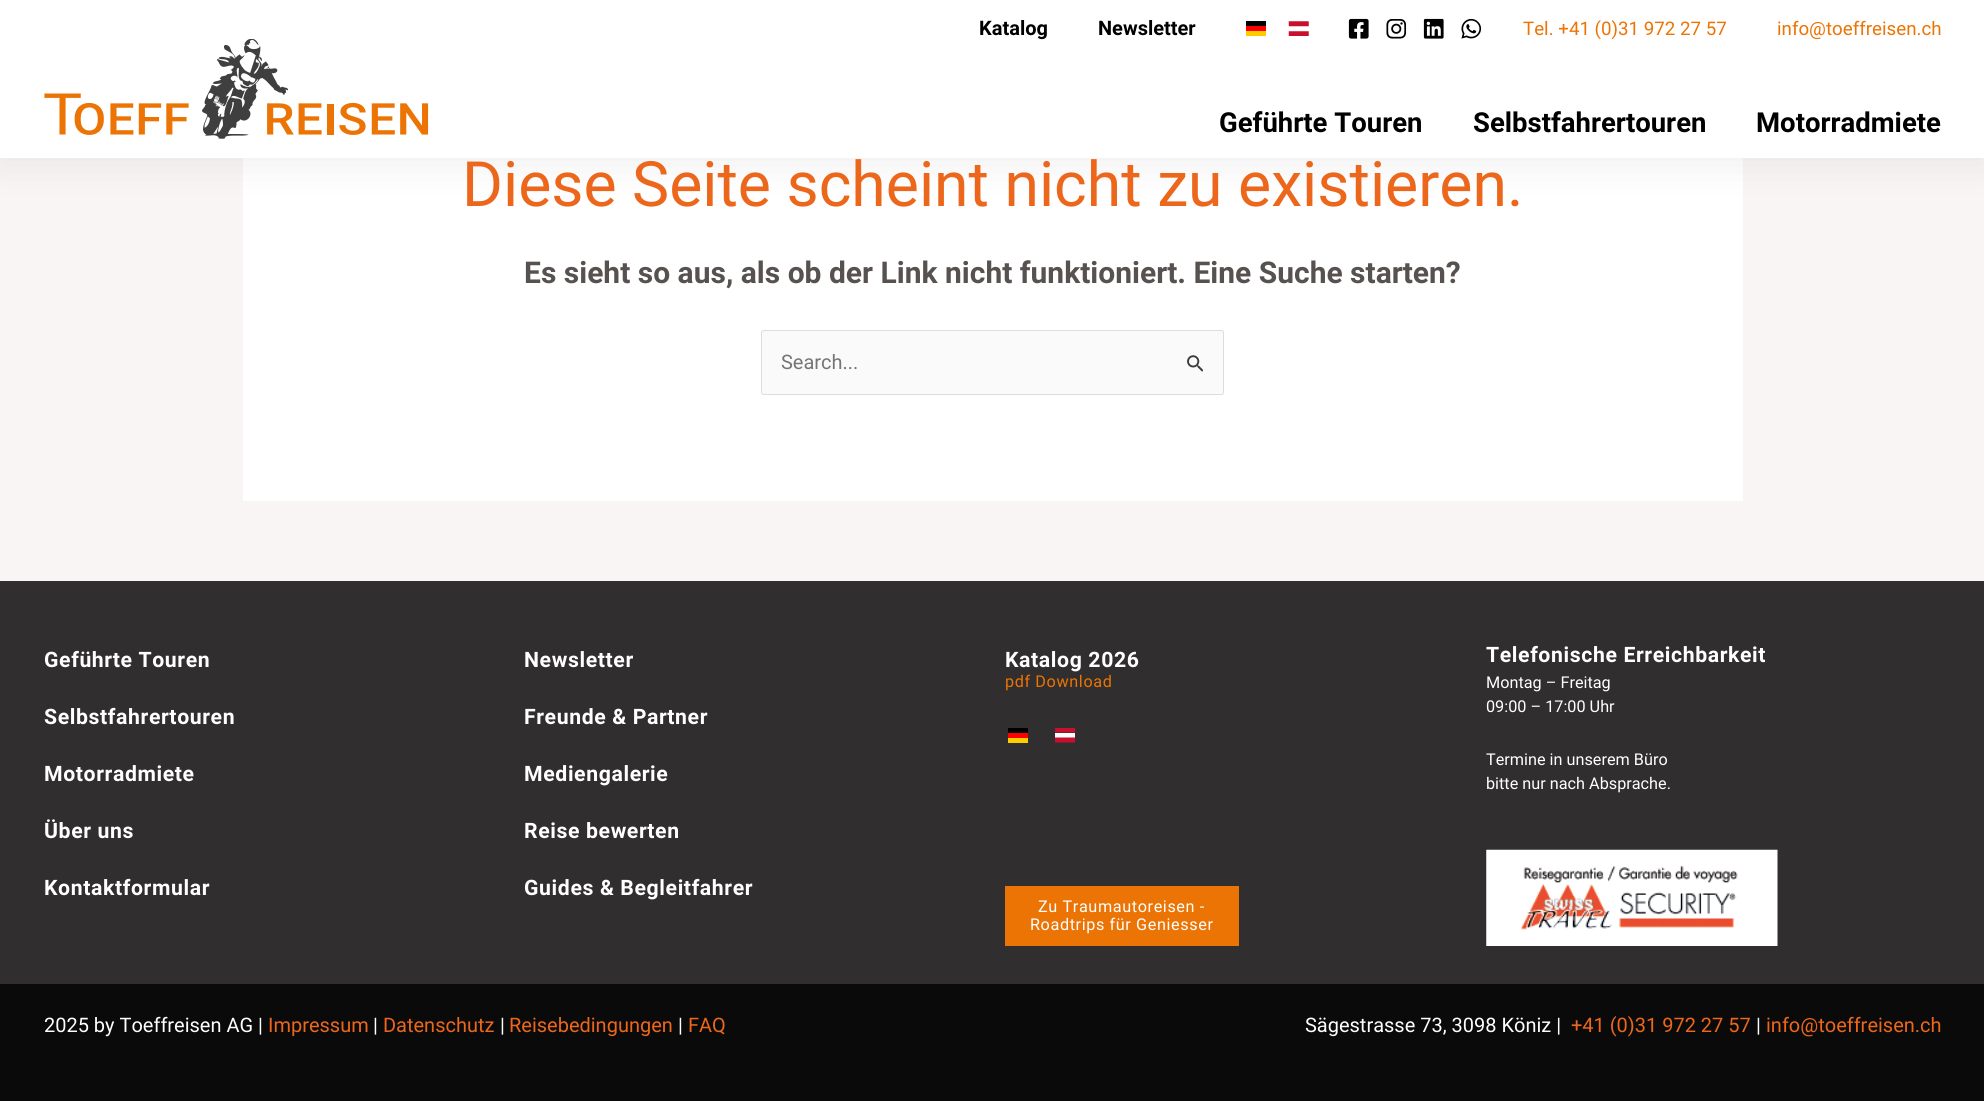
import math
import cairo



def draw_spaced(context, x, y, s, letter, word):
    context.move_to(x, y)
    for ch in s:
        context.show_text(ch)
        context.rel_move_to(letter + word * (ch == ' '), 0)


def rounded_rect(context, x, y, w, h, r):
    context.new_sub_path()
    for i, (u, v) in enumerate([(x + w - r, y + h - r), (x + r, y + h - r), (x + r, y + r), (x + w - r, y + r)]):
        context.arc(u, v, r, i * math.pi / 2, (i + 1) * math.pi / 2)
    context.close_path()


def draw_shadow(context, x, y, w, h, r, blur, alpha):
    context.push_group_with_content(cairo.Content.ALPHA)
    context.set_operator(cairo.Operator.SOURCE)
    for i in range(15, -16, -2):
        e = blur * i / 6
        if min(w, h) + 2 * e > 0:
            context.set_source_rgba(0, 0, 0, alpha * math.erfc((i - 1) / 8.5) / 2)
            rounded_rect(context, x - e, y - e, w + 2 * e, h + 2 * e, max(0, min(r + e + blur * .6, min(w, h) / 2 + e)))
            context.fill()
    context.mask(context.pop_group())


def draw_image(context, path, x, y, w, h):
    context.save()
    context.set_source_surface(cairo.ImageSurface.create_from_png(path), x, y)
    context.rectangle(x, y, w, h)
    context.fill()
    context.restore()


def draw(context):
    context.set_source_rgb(248 / 255, 245 / 255, 244 / 255)
    context.paint()
    context.set_source_rgb(1, 1, 1)
    context.rectangle(243, 158, 1500, 343)
    context.fill()
    context.set_source_rgb(0, 0, 0)
    draw_shadow(context, -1, 4, 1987, 160, 0, 20.5, 0.07)
    context.set_source_rgb(1, 1, 1)
    context.rectangle(0, 0, 1984, 158)
    context.fill()
    context.set_source_rgb(1, 204 / 255, 0)
    context.rectangle(1246, 31, 20, 5)
    context.fill()
    context.set_source_rgb(0, 0, 1 / 255)
    context.rectangle(1246, 21, 20, 5)
    context.fill()
    context.set_source_rgb(1, 0, 0)
    context.rectangle(1246, 26, 20, 5)
    context.fill()
    draw_image(context, "images/1.png", 1288, 21, 21, 15)
    draw_image(context, "images/2.png", 1348, 18, 21, 21)
    draw_image(context, "images/3.png", 1386, 19, 21, 20)
    draw_image(context, "images/4.png", 1423, 18, 21, 21)
    draw_image(context, "images/5.png", 1461, 18, 21, 21)
    draw_image(context, "images/6.png", 44, 39, 385, 100)
    context.set_source_rgb(250 / 255, 250 / 255, 250 / 255)
    rounded_rect(context, 761.5, 330.5, 462, 64, 2)
    context.fill_preserve()
    context.set_source_rgb(221 / 255, 221 / 255, 221 / 255)
    context.set_line_width(1)
    context.stroke()
    draw_image(context, "images/7.png", 1187, 355, 16, 17)
    context.set_source_rgb(48 / 255, 46 / 255, 46 / 255)
    context.rectangle(0, 581, 1984, 403)
    context.fill()
    context.set_source_rgb(0, 0, 1 / 255)
    context.rectangle(1008, 728, 20, 5)
    context.fill()
    context.set_source_rgb(1, 0, 0)
    context.rectangle(1008, 733, 20, 5)
    context.fill()
    context.set_source_rgb(1, 204 / 255, 0)
    context.rectangle(1008, 738, 20, 5)
    context.fill()
    draw_image(context, "images/8.png", 1055, 728, 20, 15)
    context.set_source_rgb(236 / 255, 116 / 255, 4 / 255)
    context.rectangle(1005, 886, 234, 60)
    context.fill()
    draw_image(context, "images/9.png", 1486, 849, 292, 97)
    context.set_source_rgb(10 / 255, 10 / 255, 10 / 255)
    context.rectangle(0, 984, 1984, 117)
    context.fill()
    context.select_font_face("Roboto", cairo.FontSlant.NORMAL, cairo.FontWeight.BOLD)
    context.set_font_size(20)
    context.set_source_rgb(0, 0, 0)
    context.move_to(979, 35)
    context.show_text("Katalog")
    context.move_to(1098, 35)
    context.show_text("Newsletter")
    context.select_font_face("Roboto")
    context.set_font_size(18.75)
    context.set_source_rgb(236 / 255, 116 / 255, 4 / 255)
    context.move_to(1523, 35)
    context.show_text("Tel. +41 (0)31 972 27 57")
    context.move_to(1777, 35)
    context.show_text("info@toeffreisen.ch")
    context.select_font_face("Roboto", cairo.FontSlant.NORMAL, cairo.FontWeight.BOLD)
    context.set_font_size(27.5)
    context.set_source_rgb(0, 0, 0)
    context.move_to(1219, 132)
    context.show_text("Geführte Touren")
    context.move_to(1473, 132)
    context.show_text("Selbstfahrertouren")
    context.move_to(1756, 132)
    context.show_text("Motorradmiete")
    context.select_font_face("Roboto")
    context.set_font_size(62.5)
    context.set_source_rgb(236 / 255, 103 / 255, 27 / 255)
    context.move_to(462, 206)
    context.show_text("Diese Seite scheint nicht zu existieren.")
    context.select_font_face("Roboto", cairo.FontSlant.NORMAL, cairo.FontWeight.BOLD)
    context.set_font_size(30)
    context.set_source_rgb(87 / 255, 82 / 255, 80 / 255)
    context.move_to(524, 283)
    context.show_text("Es sieht so aus, als ob der Link nicht funktioniert. Eine Suche starten?")
    context.select_font_face("Roboto")
    context.set_font_size(20)
    context.set_source_rgb(117 / 255, 117 / 255, 117 / 255)
    context.move_to(781, 369)
    context.show_text("Search...")
    context.select_font_face("Roboto", cairo.FontSlant.NORMAL, cairo.FontWeight.BOLD)
    context.set_font_size(21.25)
    context.set_source_rgb(1, 1, 1)
    draw_spaced(context, 44, 667, "Geführte Touren", 0.6, 0)
    draw_spaced(context, 44, 724, "Selbstfahrertouren", 0.6, 0)
    draw_spaced(context, 44, 781, "Motorradmiete", 0.6, 0)
    draw_spaced(context, 44, 838, "Über uns", 0.6, 0)
    draw_spaced(context, 44, 895, "Kontaktformular", 0.6, 0)
    draw_spaced(context, 524, 667, "Newsletter", 0.6, 0)
    draw_spaced(context, 524, 724, "Freunde & Partner", 0.6, 0)
    draw_spaced(context, 524, 781, "Mediengalerie", 0.6, 0)
    draw_spaced(context, 524, 838, "Reise bewerten", 0.6, 0)
    draw_spaced(context, 524, 895, "Guides & Begleitfahrer", 0.6, 0)
    draw_spaced(context, 1005, 667, "Katalog 2026", 0.6, 0)
    context.select_font_face("Roboto")
    context.set_font_size(16.25)
    context.set_source_rgb(236 / 255, 116 / 255, 4 / 255)
    draw_spaced(context, 1005, 687, "pdf Download", 0.6, 0)
    context.set_source_rgb(1, 1, 1)
    draw_spaced(context, 1038, 912, "Zu Traumautoreisen -", 0.6, 0)
    draw_spaced(context, 1030, 930, "Roadtrips für Geniesser", 0.6, 0)
    context.select_font_face("Roboto", cairo.FontSlant.NORMAL, cairo.FontWeight.BOLD)
    context.set_font_size(21.25)
    draw_spaced(context, 1486, 662, "Telefonische Erreichbarkeit", 0.6, 0)
    context.select_font_face("Roboto")
    context.set_font_size(16.25)
    context.move_to(1486, 688)
    context.show_text("Montag – Freitag")
    context.move_to(1486, 712)
    context.show_text("09:00 – 17:00 Uhr")
    context.move_to(1486, 765)
    context.show_text("Termine in unserem Büro")
    context.move_to(1486, 789)
    context.show_text("bitte nur nach Absprache.")
    context.set_font_size(20)
    context.move_to(44, 1032)
    context.show_text("2025 by Toeffreisen AG |")
    context.set_source_rgb(236 / 255, 103 / 255, 27 / 255)
    context.move_to(268, 1032)
    context.show_text("Impressum")
    context.set_source_rgb(1, 1, 1)
    context.move_to(373, 1032)
    context.show_text("|")
    context.set_source_rgb(236 / 255, 103 / 255, 27 / 255)
    context.move_to(383, 1032)
    context.show_text("Datenschutz")
    context.set_source_rgb(1, 1, 1)
    context.move_to(500, 1032)
    context.show_text("|")
    context.set_source_rgb(236 / 255, 103 / 255, 27 / 255)
    context.move_to(509, 1032)
    context.show_text("Reisebedingungen")
    context.set_source_rgb(1, 1, 1)
    context.move_to(678, 1032)
    context.show_text("|")
    context.set_source_rgb(236 / 255, 103 / 255, 27 / 255)
    context.move_to(688, 1032)
    context.show_text("FAQ")
    context.set_source_rgb(1, 1, 1)
    context.move_to(1305, 1032)
    context.show_text("Sägestrasse 73, 3098 Köniz |")
    context.set_source_rgb(236 / 255, 103 / 255, 27 / 255)
    context.move_to(1571, 1032)
    context.show_text("+41 (0)31 972 27 57")
    context.set_source_rgb(1, 1, 1)
    context.move_to(1756, 1032)
    context.show_text("|")
    context.set_source_rgb(236 / 255, 103 / 255, 27 / 255)
    context.move_to(1766, 1032)
    context.show_text("info@toeffreisen.ch")


surface = cairo.ImageSurface(cairo.Format.RGB24, 1984, 1101)
context = cairo.Context(surface)
options = cairo.FontOptions()
options.set_hint_metrics(cairo.HintMetrics.OFF)
options.set_hint_style(cairo.HintStyle.NONE)
context.set_font_options(options)
context.set_miter_limit(4)
draw(context)
surface.write_to_png("out.png")
